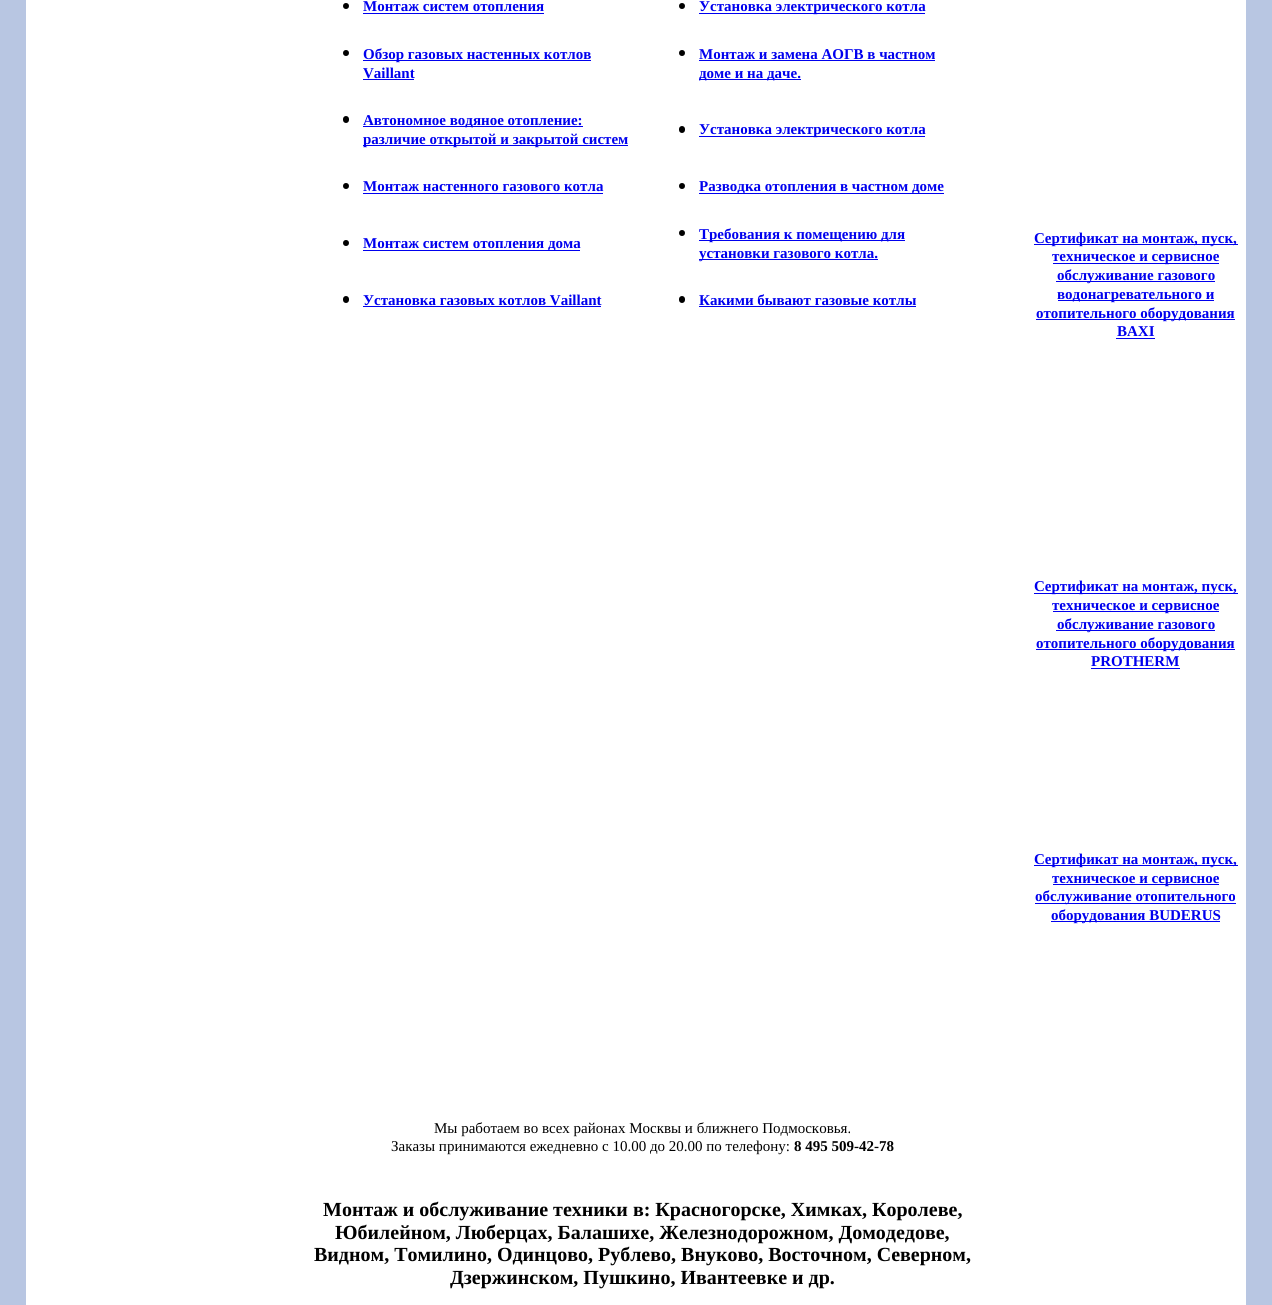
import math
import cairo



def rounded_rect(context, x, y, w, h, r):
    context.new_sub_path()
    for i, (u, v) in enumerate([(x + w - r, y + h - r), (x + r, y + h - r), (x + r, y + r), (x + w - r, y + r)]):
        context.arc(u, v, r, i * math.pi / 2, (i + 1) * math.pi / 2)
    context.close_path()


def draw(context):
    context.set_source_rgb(184 / 255, 198 / 255, 226 / 255)
    context.paint()
    context.set_source_rgb(1, 1, 1)
    context.rectangle(26, 0, 1220, 1305)
    context.fill()
    context.set_source_rgb(0, 0, 0)
    context.arc(346, 6, 3, 0, 2 * math.pi)
    context.fill()
    context.set_source_rgb(0, 0, 238 / 255)
    context.rectangle(363, 13, 181, 1)
    context.fill()
    context.set_source_rgb(0, 0, 0)
    context.arc(682, 6, 3, 0, 2 * math.pi)
    context.fill()
    context.set_source_rgb(0, 0, 238 / 255)
    context.rectangle(699, 13, 226, 1)
    context.fill()
    context.set_source_rgb(0, 0, 0)
    context.arc(346, 53, 3, 0, 2 * math.pi)
    context.fill()
    context.set_source_rgb(0, 0, 238 / 255)
    context.rectangle(363, 60, 228, 1)
    context.fill()
    context.rectangle(363, 79, 51, 1)
    context.fill()
    context.set_source_rgb(0, 0, 0)
    context.arc(682, 53, 3, 0, 2 * math.pi)
    context.fill()
    context.set_source_rgb(0, 0, 238 / 255)
    context.rectangle(699, 60, 236, 1)
    context.fill()
    context.rectangle(699, 79, 102, 1)
    context.fill()
    context.set_source_rgb(0, 0, 0)
    rounded_rect(context, 343, 116, 6, 7, 3)
    context.fill()
    context.set_source_rgb(0, 0, 238 / 255)
    context.rectangle(363, 126, 220, 1)
    context.fill()
    context.rectangle(363, 145, 265, 1)
    context.fill()
    context.set_source_rgb(0, 0, 0)
    rounded_rect(context, 679, 126, 6, 7, 3)
    context.fill()
    context.set_source_rgb(0, 0, 238 / 255)
    context.rectangle(699, 136, 226, 1)
    context.fill()
    context.set_source_rgb(0, 0, 0)
    context.arc(346, 186, 3, 0, 2 * math.pi)
    context.fill()
    context.set_source_rgb(0, 0, 238 / 255)
    context.rectangle(363, 193, 240, 1)
    context.fill()
    context.set_source_rgb(0, 0, 0)
    context.arc(682, 186, 3, 0, 2 * math.pi)
    context.fill()
    context.set_source_rgb(0, 0, 238 / 255)
    context.rectangle(699, 193, 245, 1)
    context.fill()
    context.set_source_rgb(0, 0, 0)
    context.arc(346, 243, 3, 0, 2 * math.pi)
    context.fill()
    context.set_source_rgb(0, 0, 238 / 255)
    context.rectangle(363, 250, 217, 1)
    context.fill()
    context.set_source_rgb(0, 0, 0)
    context.arc(682, 233, 3, 0, 2 * math.pi)
    context.fill()
    context.set_source_rgb(0, 0, 238 / 255)
    context.rectangle(699, 240, 206, 1)
    context.fill()
    context.rectangle(699, 259, 179, 1)
    context.fill()
    context.set_source_rgb(0, 0, 0)
    rounded_rect(context, 343, 296, 6, 7, 3)
    context.fill()
    context.set_source_rgb(0, 0, 238 / 255)
    context.rectangle(363, 306, 238, 1)
    context.fill()
    context.set_source_rgb(0, 0, 0)
    rounded_rect(context, 679, 296, 6, 7, 3)
    context.fill()
    context.set_source_rgb(0, 0, 238 / 255)
    context.rectangle(699, 306, 217, 1)
    context.fill()
    context.rectangle(1034, 244, 204, 1)
    context.fill()
    context.rectangle(1053, 263, 166, 1)
    context.fill()
    context.rectangle(1056, 281, 159, 1)
    context.fill()
    context.rectangle(1058, 300, 156, 1)
    context.fill()
    context.rectangle(1036, 319, 199, 1)
    context.fill()
    context.rectangle(1116, 338, 39, 1)
    context.fill()
    context.rectangle(1034, 593, 204, 1)
    context.fill()
    context.rectangle(1053, 611, 166, 1)
    context.fill()
    context.rectangle(1056, 630, 159, 1)
    context.fill()
    context.rectangle(1036, 649, 199, 1)
    context.fill()
    context.rectangle(1091, 668, 89, 1)
    context.fill()
    context.rectangle(1034, 865, 204, 1)
    context.fill()
    context.rectangle(1053, 884, 166, 1)
    context.fill()
    context.rectangle(1035, 903, 201, 1)
    context.fill()
    context.rectangle(1051, 921, 169, 1)
    context.fill()
    context.select_font_face("Liberation Serif", cairo.FontSlant.NORMAL, cairo.FontWeight.BOLD)
    context.set_font_size(15)
    context.move_to(363, 11)
    context.show_text("Монтаж систем отопления")
    context.move_to(699, 11)
    context.show_text("Установка электрического котла")
    context.move_to(363, 59)
    context.show_text("Обзор газовых настенных котлов")
    context.move_to(363, 78)
    context.show_text("Vaillant")
    context.move_to(699, 59)
    context.show_text("Монтаж и замена АОГВ в частном")
    context.move_to(699, 78)
    context.show_text("доме и на даче.")
    context.move_to(363, 125)
    context.show_text("Автономное водяное отопление:")
    context.move_to(363, 144)
    context.show_text("различие открытой и закрытой систем")
    context.move_to(699, 134)
    context.show_text("Установка электрического котла")
    context.move_to(363, 191)
    context.show_text("Монтаж настенного газового котла")
    context.move_to(699, 191)
    context.show_text("Разводка отопления в частном доме")
    context.move_to(363, 248)
    context.show_text("Монтаж систем отопления дома")
    context.move_to(699, 239)
    context.show_text("Требования к помещению для")
    context.move_to(699, 258)
    context.show_text("установки газового котла.")
    context.move_to(363, 305)
    context.show_text("Установка газовых котлов Vaillant")
    context.move_to(699, 305)
    context.show_text("Какими бывают газовые котлы")
    context.select_font_face("Liberation Serif")
    context.set_source_rgb(0, 0, 0)
    context.move_to(434, 1133)
    context.show_text("Мы работаем во всех районах Москвы и ближнего Подмосковья.")
    context.move_to(391, 1151)
    context.show_text("Заказы принимаются ежедневно с 10.00 до 20.00 по телефону:")
    context.select_font_face("Liberation Serif", cairo.FontSlant.NORMAL, cairo.FontWeight.BOLD)
    context.move_to(794, 1151)
    context.show_text("8 495 509-42-78")
    context.set_font_size(20)
    context.move_to(323, 1216)
    context.show_text("Монтаж и обслуживание техники в: Красногорске, Химках, Королеве,")
    context.move_to(335, 1239)
    context.show_text("Юбилейном, Люберцах, Балашихе, Железнодорожном, Домодедове,")
    context.move_to(314, 1261)
    context.show_text("Видном, Томилино, Одинцово, Рублево, Внуково, Восточном, Северном,")
    context.move_to(450, 1284)
    context.show_text("Дзержинском, Пушкино, Ивантеевке и др.")
    context.set_font_size(15)
    context.set_source_rgb(0, 0, 238 / 255)
    context.move_to(1034, 243)
    context.show_text("Сертификат на монтаж, пуск,")
    context.move_to(1052, 261)
    context.show_text("техническое и сервисное")
    context.move_to(1057, 280)
    context.show_text("обслуживание газового")
    context.move_to(1057, 299)
    context.show_text("водонагревательного и")
    context.move_to(1036, 318)
    context.show_text("отопительного оборудования")
    context.move_to(1117, 336)
    context.show_text("BAXI")
    context.move_to(1034, 591)
    context.show_text("Сертификат на монтаж, пуск,")
    context.move_to(1052, 610)
    context.show_text("техническое и сервисное")
    context.move_to(1057, 629)
    context.show_text("обслуживание газового")
    context.move_to(1036, 648)
    context.show_text("отопительного оборудования")
    context.move_to(1091, 666)
    context.show_text("PROTHERM")
    context.move_to(1034, 864)
    context.show_text("Сертификат на монтаж, пуск,")
    context.move_to(1052, 883)
    context.show_text("техническое и сервисное")
    context.move_to(1035, 901)
    context.show_text("обслуживание отопительного")
    context.move_to(1051, 920)
    context.show_text("оборудования BUDERUS")


surface = cairo.ImageSurface(cairo.Format.RGB24, 1272, 1305)
context = cairo.Context(surface)
options = cairo.FontOptions()
options.set_hint_metrics(cairo.HintMetrics.OFF)
options.set_hint_style(cairo.HintStyle.NONE)
context.set_font_options(options)
context.set_miter_limit(4)
draw(context)
surface.write_to_png("out.png")
